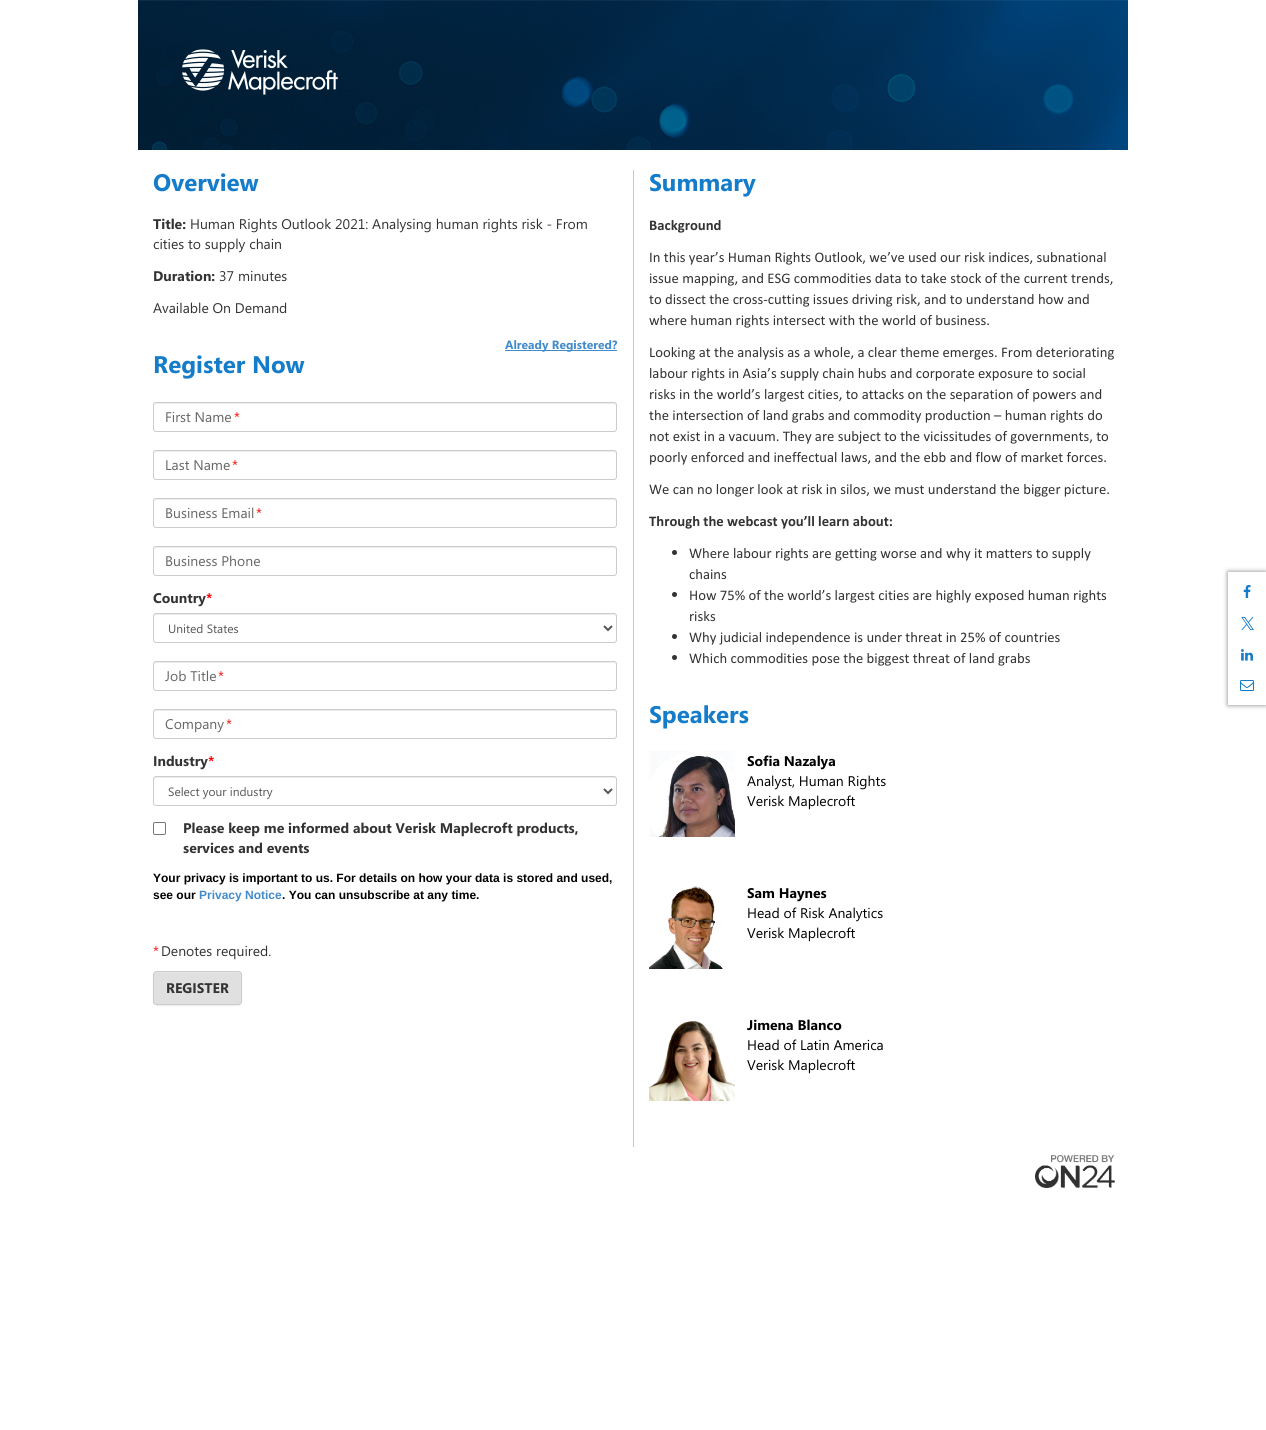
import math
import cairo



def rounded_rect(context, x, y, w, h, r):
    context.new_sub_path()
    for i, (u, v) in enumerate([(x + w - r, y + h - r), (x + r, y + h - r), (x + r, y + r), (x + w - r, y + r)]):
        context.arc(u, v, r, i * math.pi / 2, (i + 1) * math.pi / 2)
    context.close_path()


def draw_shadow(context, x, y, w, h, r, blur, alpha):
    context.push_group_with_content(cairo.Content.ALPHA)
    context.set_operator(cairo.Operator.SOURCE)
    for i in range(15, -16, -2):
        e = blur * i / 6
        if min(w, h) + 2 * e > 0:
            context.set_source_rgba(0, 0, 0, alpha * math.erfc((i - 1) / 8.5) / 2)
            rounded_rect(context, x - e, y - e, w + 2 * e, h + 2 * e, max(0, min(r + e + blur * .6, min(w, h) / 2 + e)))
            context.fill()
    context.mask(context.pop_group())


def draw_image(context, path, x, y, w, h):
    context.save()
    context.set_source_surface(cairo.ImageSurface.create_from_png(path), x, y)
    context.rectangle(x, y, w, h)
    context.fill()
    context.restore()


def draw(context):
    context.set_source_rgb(1, 1, 1)
    context.paint()
    draw_image(context, "images/1.png", 138, 0, 990, 150)
    context.set_source_rgb(66 / 255, 139 / 255, 202 / 255)
    context.rectangle(505, 350, 112, 1)
    context.fill()
    context.set_source_rgb(236 / 255, 236 / 255, 236 / 255)
    context.new_path()
    context.move_to(156, 404)
    context.line_to(614, 404)
    context.curve_to(615, 404, 616, 405, 616, 406)
    context.curve_to(616, 405, 616, 403, 614, 403)
    context.line_to(156, 403)
    context.line_to(154, 404)
    context.line_to(154, 406)
    context.curve_to(154, 405, 155, 404, 156, 404)
    context.close_path()
    context.fill()
    rounded_rect(context, 153.5, 402.5, 463, 29, 2.5)
    context.set_source_rgb(204 / 255, 204 / 255, 204 / 255)
    context.set_line_width(1)
    context.stroke()
    context.set_source_rgb(236 / 255, 236 / 255, 236 / 255)
    context.new_path()
    context.move_to(156, 452)
    context.line_to(614, 452)
    context.curve_to(615, 452, 616, 453, 616, 454)
    context.curve_to(616, 453, 616, 451, 614, 451)
    context.line_to(156, 451)
    context.line_to(154, 452)
    context.line_to(154, 454)
    context.curve_to(154, 453, 155, 452, 156, 452)
    context.close_path()
    context.fill()
    rounded_rect(context, 153.5, 450.5, 463, 29, 2.5)
    context.set_source_rgb(204 / 255, 204 / 255, 204 / 255)
    context.stroke()
    context.set_source_rgb(236 / 255, 236 / 255, 236 / 255)
    context.new_path()
    context.move_to(156, 500)
    context.line_to(614, 500)
    context.curve_to(615, 500, 616, 501, 616, 502)
    context.curve_to(616, 501, 616, 499, 614, 499)
    context.line_to(156, 499)
    context.line_to(154, 500)
    context.line_to(154, 502)
    context.curve_to(154, 501, 155, 500, 156, 500)
    context.close_path()
    context.fill()
    rounded_rect(context, 153.5, 498.5, 463, 29, 2.5)
    context.set_source_rgb(204 / 255, 204 / 255, 204 / 255)
    context.stroke()
    context.set_source_rgb(236 / 255, 236 / 255, 236 / 255)
    context.new_path()
    context.move_to(156, 548)
    context.line_to(614, 548)
    context.curve_to(615, 548, 616, 549, 616, 550)
    context.curve_to(616, 549, 616, 547, 614, 547)
    context.line_to(156, 547)
    context.line_to(154, 548)
    context.line_to(154, 550)
    context.curve_to(154, 549, 155, 548, 156, 548)
    context.close_path()
    context.fill()
    rounded_rect(context, 153.5, 546.5, 463, 29, 2.5)
    context.set_source_rgb(204 / 255, 204 / 255, 204 / 255)
    context.stroke()
    context.set_source_rgb(236 / 255, 236 / 255, 236 / 255)
    context.new_path()
    context.move_to(156, 615)
    context.line_to(614, 615)
    context.curve_to(615, 615, 616, 616, 616, 617)
    context.curve_to(616, 616, 616, 614, 614, 614)
    context.line_to(156, 614)
    context.line_to(154, 615)
    context.line_to(154, 617)
    context.curve_to(154, 616, 155, 615, 156, 615)
    context.close_path()
    context.fill()
    rounded_rect(context, 153.5, 613.5, 463, 29, 2.5)
    context.set_source_rgb(204 / 255, 204 / 255, 204 / 255)
    context.stroke()
    context.new_path()
    context.move_to(604, 626)
    context.line_to(608, 630)
    context.line_to(612, 626)
    context.set_source_rgb(85 / 255, 85 / 255, 85 / 255)
    context.set_line_width(2)
    context.stroke()
    context.set_source_rgb(236 / 255, 236 / 255, 236 / 255)
    context.new_path()
    context.move_to(156, 663)
    context.line_to(614, 663)
    context.curve_to(615, 663, 616, 664, 616, 665)
    context.curve_to(616, 664, 616, 662, 614, 662)
    context.line_to(156, 662)
    context.line_to(154, 663)
    context.line_to(154, 665)
    context.curve_to(154, 664, 155, 663, 156, 663)
    context.close_path()
    context.fill()
    rounded_rect(context, 153.5, 661.5, 463, 29, 2.5)
    context.set_source_rgb(204 / 255, 204 / 255, 204 / 255)
    context.set_line_width(1)
    context.stroke()
    context.set_source_rgb(236 / 255, 236 / 255, 236 / 255)
    context.new_path()
    context.move_to(156, 711)
    context.line_to(614, 711)
    context.curve_to(615, 711, 616, 712, 616, 713)
    context.curve_to(616, 712, 616, 710, 614, 710)
    context.line_to(156, 710)
    context.line_to(154, 711)
    context.line_to(154, 713)
    context.curve_to(154, 712, 155, 711, 156, 711)
    context.close_path()
    context.fill()
    rounded_rect(context, 153.5, 709.5, 463, 29, 2.5)
    context.set_source_rgb(204 / 255, 204 / 255, 204 / 255)
    context.stroke()
    context.set_source_rgb(236 / 255, 236 / 255, 236 / 255)
    context.new_path()
    context.move_to(156, 778)
    context.line_to(614, 778)
    context.curve_to(615, 778, 616, 779, 616, 780)
    context.curve_to(616, 779, 616, 777, 614, 777)
    context.line_to(156, 777)
    context.line_to(154, 778)
    context.line_to(154, 780)
    context.curve_to(154, 779, 155, 778, 156, 778)
    context.close_path()
    context.fill()
    rounded_rect(context, 153.5, 776.5, 463, 29, 2.5)
    context.set_source_rgb(204 / 255, 204 / 255, 204 / 255)
    context.stroke()
    context.new_path()
    context.move_to(604, 789)
    context.line_to(608, 793)
    context.line_to(612, 789)
    context.set_source_rgb(85 / 255, 85 / 255, 85 / 255)
    context.set_line_width(2)
    context.stroke()
    rounded_rect(context, 153.5, 822.5, 12, 12, 1.5)
    context.set_source_rgb(118 / 255, 118 / 255, 118 / 255)
    context.set_line_width(1)
    context.stroke()
    context.set_source_rgb(0, 0, 0)
    draw_shadow(context, 153, 972, 89, 34, 4, 0.5, 0.07)
    context.set_source_rgb(224 / 255, 224 / 255, 224 / 255)
    rounded_rect(context, 153, 971, 89, 34, 4)
    context.fill()
    context.set_source_rgb(229 / 255, 229 / 255, 229 / 255)
    context.new_path()
    context.move_to(157, 973)
    context.line_to(238, 973)
    context.curve_to(240, 973, 241, 974, 241, 976)
    context.curve_to(241, 968, 228, 972, 224, 972)
    context.line_to(170, 972)
    context.curve_to(167, 972, 154, 968, 154, 976)
    context.curve_to(154, 974, 155, 973, 157, 973)
    context.close_path()
    context.fill()
    rounded_rect(context, 153.5, 971.5, 88, 33, 3.5)
    context.set_source_rgb(204 / 255, 204 / 255, 204 / 255)
    context.stroke()
    context.set_source_rgb(200 / 255, 200 / 255, 200 / 255)
    context.rectangle(633, 170, 1, 977)
    context.fill()
    context.set_source_rgb(51 / 255, 51 / 255, 51 / 255)
    context.arc(674.5, 552.5, 2.5, 0, 2 * math.pi)
    context.fill()
    context.arc(674.5, 594.5, 2.5, 0, 2 * math.pi)
    context.fill()
    context.arc(674.5, 636.5, 2.5, 0, 2 * math.pi)
    context.fill()
    context.arc(674.5, 657.5, 2.5, 0, 2 * math.pi)
    context.fill()
    draw_image(context, "images/2.png", 649, 751, 86, 86)
    draw_image(context, "images/3.png", 649, 886, 74, 83)
    draw_image(context, "images/4.png", 649, 1021, 86, 80)
    context.save()
    context.set_fill_rule(cairo.FillRule.EVEN_ODD)
    context.new_path()
    context.move_to(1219, 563)
    context.line_to(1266, 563)
    context.line_to(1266, 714)
    context.line_to(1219, 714)
    context.close_path()
    context.move_to(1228, 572)
    context.line_to(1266, 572)
    context.line_to(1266, 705)
    context.line_to(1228, 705)
    context.close_path()
    context.clip()
    context.set_source_rgb(128 / 255, 128 / 255, 128 / 255)
    draw_shadow(context, 1228, 572, 38, 133, 0, 2.5, 1)
    context.restore()
    draw_image(context, "images/5.png", 1243, 585, 8, 13)
    draw_image(context, "images/6.png", 1241, 616, 13, 14)
    draw_image(context, "images/7.png", 1241, 649, 12, 12)
    draw_image(context, "images/8.png", 1240, 680, 14, 11)
    draw_image(context, "images/9.png", 1035, 1155, 80, 33)
    context.select_font_face("Segoe UI", cairo.FontSlant.NORMAL, cairo.FontWeight.BOLD)
    context.set_font_size(24)
    context.set_source_rgb(20 / 255, 124 / 255, 201 / 255)
    context.move_to(153, 191)
    context.show_text("Overview")
    context.set_font_size(14)
    context.set_source_rgb(51 / 255, 51 / 255, 51 / 255)
    context.move_to(153, 229)
    context.show_text("Title:")
    context.select_font_face("Segoe UI")
    context.move_to(190, 229)
    context.show_text("Human Rights Outlook 2021: Analysing human rights risk - From")
    context.move_to(153, 249)
    context.show_text("cities to supply chain")
    context.select_font_face("Segoe UI", cairo.FontSlant.NORMAL, cairo.FontWeight.BOLD)
    context.move_to(153, 281)
    context.show_text("Duration:")
    context.select_font_face("Segoe UI")
    context.move_to(219, 281)
    context.show_text("37 minutes")
    context.move_to(153, 313)
    context.show_text("Available On Demand")
    context.select_font_face("Segoe UI", cairo.FontSlant.NORMAL, cairo.FontWeight.BOLD)
    context.set_font_size(12)
    context.set_source_rgb(66 / 255, 139 / 255, 202 / 255)
    context.move_to(505, 349)
    context.show_text("Already Registered?")
    context.set_font_size(24)
    context.set_source_rgb(20 / 255, 124 / 255, 201 / 255)
    context.move_to(153, 373)
    context.show_text("Register Now")
    context.select_font_face("Segoe UI")
    context.set_font_size(14)
    context.set_source_rgb(102 / 255, 102 / 255, 102 / 255)
    context.move_to(165, 422)
    context.show_text("First Name")
    context.set_source_rgb(1, 0, 0)
    context.move_to(234, 422)
    context.show_text("*")
    context.set_source_rgb(102 / 255, 102 / 255, 102 / 255)
    context.move_to(165, 470)
    context.show_text("Last Name")
    context.set_source_rgb(1, 0, 0)
    context.move_to(232, 470)
    context.show_text("*")
    context.set_source_rgb(102 / 255, 102 / 255, 102 / 255)
    context.move_to(165, 518)
    context.show_text("Business Email")
    context.set_source_rgb(1, 0, 0)
    context.move_to(256, 518)
    context.show_text("*")
    context.set_source_rgb(102 / 255, 102 / 255, 102 / 255)
    context.move_to(165, 566)
    context.show_text("Business Phone")
    context.select_font_face("Segoe UI", cairo.FontSlant.NORMAL, cairo.FontWeight.BOLD)
    context.set_source_rgb(51 / 255, 51 / 255, 51 / 255)
    context.move_to(153, 603)
    context.show_text("Country")
    context.set_source_rgb(1, 0, 0)
    context.move_to(206, 603)
    context.show_text("*")
    context.select_font_face("Segoe UI")
    context.set_font_size(12)
    context.set_source_rgb(85 / 255, 85 / 255, 85 / 255)
    context.move_to(168, 633)
    context.show_text("United States")
    context.set_font_size(14)
    context.set_source_rgb(102 / 255, 102 / 255, 102 / 255)
    context.move_to(165, 681)
    context.show_text("Job Title")
    context.set_source_rgb(1, 0, 0)
    context.move_to(218, 681)
    context.show_text("*")
    context.set_source_rgb(102 / 255, 102 / 255, 102 / 255)
    context.move_to(165, 729)
    context.show_text("Company")
    context.set_source_rgb(1, 0, 0)
    context.move_to(226, 729)
    context.show_text("*")
    context.select_font_face("Segoe UI", cairo.FontSlant.NORMAL, cairo.FontWeight.BOLD)
    context.set_source_rgb(51 / 255, 51 / 255, 51 / 255)
    context.move_to(153, 766)
    context.show_text("Industry")
    context.set_source_rgb(1, 0, 0)
    context.move_to(208, 766)
    context.show_text("*")
    context.select_font_face("Segoe UI")
    context.set_font_size(12)
    context.set_source_rgb(85 / 255, 85 / 255, 85 / 255)
    context.move_to(168, 796)
    context.show_text("Select your industry")
    context.select_font_face("Segoe UI", cairo.FontSlant.NORMAL, cairo.FontWeight.BOLD)
    context.set_font_size(14)
    context.set_source_rgb(51 / 255, 51 / 255, 51 / 255)
    context.move_to(183, 833)
    context.show_text("Please keep me informed about Verisk Maplecroft products,")
    context.move_to(183, 853)
    context.show_text("services and events")
    context.select_font_face("Liberation Sans", cairo.FontSlant.NORMAL, cairo.FontWeight.BOLD)
    context.set_font_size(12)
    context.set_source_rgb(0, 0, 0)
    context.move_to(153, 882)
    context.show_text("Your privacy is important to us. For details on how your data is stored and used,")
    context.move_to(153, 899)
    context.show_text("see our")
    context.set_source_rgb(66 / 255, 139 / 255, 202 / 255)
    context.move_to(199, 899)
    context.show_text("Privacy Notice")
    context.set_source_rgb(0, 0, 0)
    context.move_to(282, 899)
    context.show_text(". You can unsubscribe at any time.")
    context.select_font_face("Segoe UI")
    context.set_font_size(14)
    context.set_source_rgb(1, 0, 0)
    context.move_to(153, 956)
    context.show_text("*")
    context.set_source_rgb(51 / 255, 51 / 255, 51 / 255)
    context.move_to(161, 956)
    context.show_text("Denotes required.")
    context.select_font_face("Segoe UI", cairo.FontSlant.NORMAL, cairo.FontWeight.BOLD)
    context.move_to(166, 993)
    context.show_text("REGISTER")
    context.set_font_size(24)
    context.set_source_rgb(20 / 255, 124 / 255, 201 / 255)
    context.move_to(649, 191)
    context.show_text("Summary")
    context.select_font_face("Calibri", cairo.FontSlant.NORMAL, cairo.FontWeight.BOLD)
    context.set_font_size(14.7)
    context.set_source_rgb(51 / 255, 51 / 255, 51 / 255)
    context.move_to(649, 230)
    context.show_text("Background")
    context.select_font_face("Calibri")
    context.move_to(649, 262)
    context.show_text("In this year’s Human Rights Outlook, we’ve used our risk indices, subnational")
    context.move_to(649, 283)
    context.show_text("issue mapping, and ESG commodities data to take stock of the current trends,")
    context.move_to(649, 304)
    context.show_text("to dissect the cross-cutting issues driving risk, and to understand how and")
    context.move_to(649, 325)
    context.show_text("where human rights intersect with the world of business.")
    context.move_to(649, 357)
    context.show_text("Looking at the analysis as a whole, a clear theme emerges. From deteriorating")
    context.move_to(649, 378)
    context.show_text("labour rights in Asia’s supply chain hubs and corporate exposure to social")
    context.move_to(649, 399)
    context.show_text("risks in the world’s largest cities, to attacks on the separation of powers and")
    context.move_to(649, 420)
    context.show_text("the intersection of land grabs and commodity production – human rights do")
    context.move_to(649, 441)
    context.show_text("not exist in a vacuum. They are subject to the vicissitudes of governments, to")
    context.move_to(649, 462)
    context.show_text("poorly enforced and ineffectual laws, and the ebb and flow of market forces.")
    context.move_to(649, 494)
    context.show_text("We can no longer look at risk in silos, we must understand the bigger picture.")
    context.select_font_face("Calibri", cairo.FontSlant.NORMAL, cairo.FontWeight.BOLD)
    context.move_to(649, 526)
    context.show_text("Through the webcast you’ll learn about:")
    context.select_font_face("Calibri")
    context.move_to(689, 558)
    context.show_text("Where labour rights are getting worse and why it matters to supply")
    context.move_to(689, 579)
    context.show_text("chains")
    context.move_to(689, 600)
    context.show_text("How 75% of the world’s largest cities are highly exposed human rights")
    context.move_to(689, 621)
    context.show_text("risks")
    context.move_to(689, 642)
    context.show_text("Why judicial independence is under threat in 25% of countries")
    context.move_to(689, 663)
    context.show_text("Which commodities pose the biggest threat of land grabs")
    context.select_font_face("Segoe UI", cairo.FontSlant.NORMAL, cairo.FontWeight.BOLD)
    context.set_font_size(24)
    context.set_source_rgb(20 / 255, 124 / 255, 201 / 255)
    context.move_to(649, 723)
    context.show_text("Speakers")
    context.set_font_size(14)
    context.set_source_rgb(0, 0, 0)
    context.move_to(747, 766)
    context.show_text("Sofia Nazalya")
    context.select_font_face("Segoe UI")
    context.move_to(747, 786)
    context.show_text("Analyst, Human Rights")
    context.move_to(747, 806)
    context.show_text("Verisk Maplecroft")
    context.select_font_face("Segoe UI", cairo.FontSlant.NORMAL, cairo.FontWeight.BOLD)
    context.move_to(747, 898)
    context.show_text("Sam Haynes")
    context.select_font_face("Segoe UI")
    context.move_to(747, 918)
    context.show_text("Head of Risk Analytics")
    context.move_to(747, 938)
    context.show_text("Verisk Maplecroft")
    context.select_font_face("Segoe UI", cairo.FontSlant.NORMAL, cairo.FontWeight.BOLD)
    context.move_to(747, 1030)
    context.show_text("Jimena Blanco")
    context.select_font_face("Segoe UI")
    context.move_to(747, 1050)
    context.show_text("Head of Latin America")
    context.move_to(747, 1070)
    context.show_text("Verisk Maplecroft")


surface = cairo.ImageSurface(cairo.Format.RGB24, 1266, 1430)
context = cairo.Context(surface)
options = cairo.FontOptions()
options.set_hint_metrics(cairo.HintMetrics.OFF)
options.set_hint_style(cairo.HintStyle.NONE)
context.set_font_options(options)
context.set_miter_limit(4)
draw(context)
surface.write_to_png("out.png")
